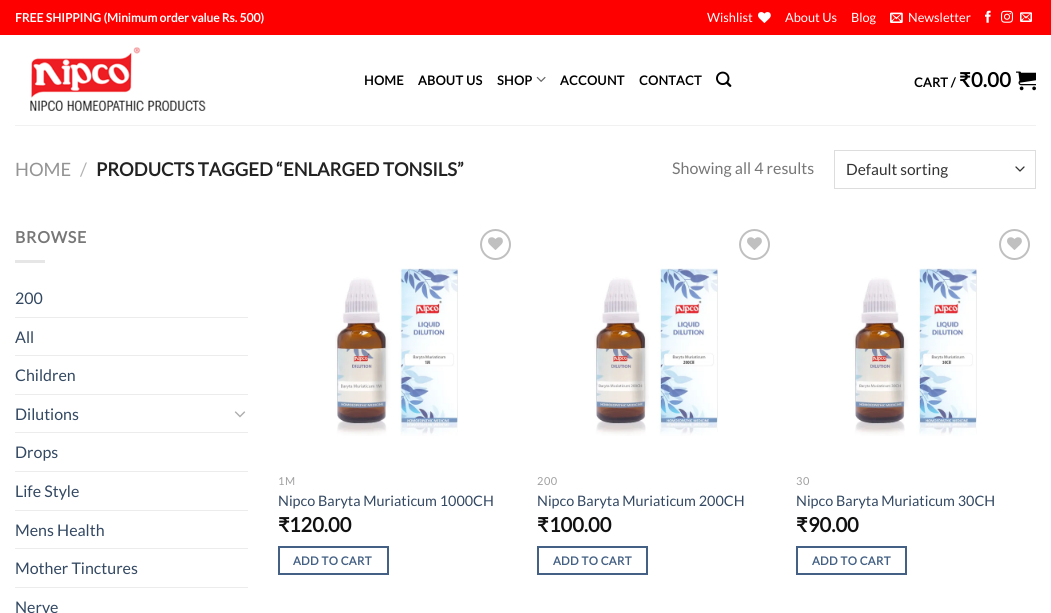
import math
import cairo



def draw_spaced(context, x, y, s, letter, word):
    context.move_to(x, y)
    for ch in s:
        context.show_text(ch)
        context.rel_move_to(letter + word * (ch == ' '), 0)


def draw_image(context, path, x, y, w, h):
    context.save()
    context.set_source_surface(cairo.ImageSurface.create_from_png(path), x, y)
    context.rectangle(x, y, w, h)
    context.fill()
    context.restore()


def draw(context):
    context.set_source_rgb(1, 1, 1)
    context.paint()
    context.set_source_rgb(1, 0, 0)
    context.rectangle(0, 0, 1051, 35)
    context.fill()
    draw_image(context, "images/1.png", 758, 12, 13, 11)
    draw_image(context, "images/2.png", 890, 12, 13, 11)
    draw_image(context, "images/3.png", 985, 10, 6, 13)
    draw_image(context, "images/4.png", 1001, 10, 12, 13)
    draw_image(context, "images/5.png", 1020, 12, 12, 10)
    draw_image(context, "images/6.png", 30, 47, 176, 64)
    draw_image(context, "images/7.png", 536, 76, 10, 6)
    draw_image(context, "images/8.png", 716, 71, 16, 16)
    draw_image(context, "images/9.png", 1016, 71, 20, 20)
    context.set_source_rgb(241 / 255, 241 / 255, 241 / 255)
    context.rectangle(15, 125, 1021, 1)
    context.fill()
    context.new_path()
    context.move_to(1016, 167)
    context.line_to(1020, 171)
    context.line_to(1024, 167)
    context.set_source_rgb(51 / 255, 51 / 255, 51 / 255)
    context.set_line_width(1.3)
    context.set_line_cap(cairo.LineCap.ROUND)
    context.set_line_join(cairo.LineJoin.ROUND)
    context.stroke()
    context.rectangle(834.5, 150.5, 201, 38)
    context.set_source_rgb(221 / 255, 221 / 255, 221 / 255)
    context.set_line_width(1)
    context.set_line_cap(cairo.LineCap.BUTT)
    context.set_line_join(cairo.LineJoin.MITER)
    context.stroke()
    context.set_source_rgb(230 / 255, 230 / 255, 230 / 255)
    context.rectangle(15, 260, 30, 3)
    context.fill()
    context.set_source_rgb(236 / 255, 236 / 255, 236 / 255)
    context.rectangle(15, 317, 233, 1)
    context.fill()
    context.rectangle(15, 355, 233, 1)
    context.fill()
    context.rectangle(15, 394, 233, 1)
    context.fill()
    draw_image(context, "images/10.png", 234, 411, 12, 7)
    context.rectangle(15, 432, 233, 1)
    context.fill()
    context.rectangle(15, 471, 233, 1)
    context.fill()
    context.rectangle(15, 510, 233, 1)
    context.fill()
    context.rectangle(15, 548, 233, 1)
    context.fill()
    context.rectangle(15, 587, 233, 1)
    context.fill()
    context.arc(495.5, 244.5, 14.5, 0, 2 * math.pi)
    context.set_source_rgb(192 / 255, 192 / 255, 192 / 255)
    context.set_line_width(2)
    context.stroke()
    draw_image(context, "images/11.png", 488, 237, 15, 13)
    draw_image(context, "images/12.png", 335, 268, 123, 168)
    context.rectangle(279, 547, 109, 27)
    context.set_source_rgb(68 / 255, 96 / 255, 132 / 255)
    context.stroke()
    context.arc(754.5, 244.5, 14.5, 0, 2 * math.pi)
    context.set_source_rgb(192 / 255, 192 / 255, 192 / 255)
    context.stroke()
    draw_image(context, "images/11.png", 747, 237, 15, 13)
    draw_image(context, "images/13.png", 594, 268, 124, 168)
    context.rectangle(538, 547, 109, 27)
    context.set_source_rgb(68 / 255, 96 / 255, 132 / 255)
    context.stroke()
    context.arc(1014.5, 244.5, 14.5, 0, 2 * math.pi)
    context.set_source_rgb(192 / 255, 192 / 255, 192 / 255)
    context.stroke()
    draw_image(context, "images/11.png", 1007, 237, 15, 13)
    draw_image(context, "images/14.png", 853, 268, 124, 168)
    context.rectangle(797, 547, 109, 27)
    context.set_source_rgb(68 / 255, 96 / 255, 132 / 255)
    context.stroke()
    context.select_font_face("Lato", cairo.FontSlant.NORMAL, cairo.FontWeight.BOLD)
    context.set_font_size(12)
    context.set_source_rgb(1, 1, 1)
    context.move_to(15, 22)
    context.show_text("FREE SHIPPING (Minimum order value Rs. 500)")
    context.select_font_face("Lato")
    context.set_font_size(12.75)
    context.move_to(707, 22)
    context.show_text("Wishlist")
    context.move_to(785, 22)
    context.show_text("About Us")
    context.move_to(851, 22)
    context.show_text("Blog")
    context.move_to(908, 22)
    context.show_text("Newsletter")
    context.select_font_face("Lato", cairo.FontSlant.NORMAL, cairo.FontWeight.BOLD)
    context.set_source_rgb(0, 0, 0)
    draw_spaced(context, 364, 85, "HOME", 0.25, 0)
    draw_spaced(context, 418, 85, "ABOUT US", 0.25, 0)
    draw_spaced(context, 497, 85, "SHOP", 0.25, 0)
    draw_spaced(context, 560, 85, "ACCOUNT", 0.25, 0)
    draw_spaced(context, 639, 85, "CONTACT", 0.25, 0)
    draw_spaced(context, 914, 87, "CART /", 0.25, 0)
    context.select_font_face("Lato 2", cairo.FontSlant.NORMAL, cairo.FontWeight.BOLD)
    context.set_font_size(20)
    draw_spaced(context, 959, 87, "₹", 0.25, 0)
    context.select_font_face("Lato", cairo.FontSlant.NORMAL, cairo.FontWeight.BOLD)
    draw_spaced(context, 971, 87, "0.00", 0.25, 0)
    context.select_font_face("Lato")
    context.set_font_size(18.4)
    context.set_source_rgb(148 / 255, 148 / 255, 148 / 255)
    context.move_to(15, 176)
    context.show_text("HOME")
    context.set_source_rgb(178 / 255, 178 / 255, 178 / 255)
    context.move_to(80, 176)
    context.show_text("/")
    context.select_font_face("Lato", cairo.FontSlant.NORMAL, cairo.FontWeight.BOLD)
    context.set_source_rgb(34 / 255, 34 / 255, 34 / 255)
    context.move_to(96, 176)
    context.show_text("PRODUCTS TAGGED “ENLARGED TONSILS”")
    context.select_font_face("Lato")
    context.set_font_size(16)
    context.set_source_rgb(119 / 255, 119 / 255, 119 / 255)
    context.move_to(672, 174)
    context.show_text("Showing all 4 results")
    context.set_font_size(15.5)
    context.set_source_rgb(51 / 255, 51 / 255, 51 / 255)
    context.move_to(846, 175)
    context.show_text("Default sorting")
    context.select_font_face("Lato", cairo.FontSlant.NORMAL, cairo.FontWeight.BOLD)
    context.set_font_size(16)
    context.set_source_rgb(119 / 255, 119 / 255, 119 / 255)
    draw_spaced(context, 15, 243, "BROWSE", 0.75, 0)
    context.select_font_face("Lato")
    context.set_source_rgb(51 / 255, 72 / 255, 98 / 255)
    context.move_to(15, 304)
    context.show_text("200")
    context.move_to(15, 343)
    context.show_text("All")
    context.move_to(15, 381)
    context.show_text("Children")
    context.move_to(15, 420)
    context.show_text("Dilutions")
    context.move_to(15, 458)
    context.show_text("Drops")
    context.move_to(15, 497)
    context.show_text("Life Style")
    context.move_to(15, 536)
    context.show_text("Mens Health")
    context.move_to(15, 574)
    context.show_text("Mother Tinctures")
    context.move_to(15, 613)
    context.show_text("Nerve")
    context.set_font_size(11)
    context.set_source_rgb(160 / 255, 160 / 255, 160 / 255)
    draw_spaced(context, 278, 485, "1M", 0.5, 0)
    context.set_font_size(14.4)
    context.set_source_rgb(51 / 255, 72 / 255, 98 / 255)
    context.move_to(278, 506)
    context.show_text("Nipco Baryta Muriaticum 1000CH")
    context.select_font_face("Lato 2", cairo.FontSlant.NORMAL, cairo.FontWeight.BOLD)
    context.set_font_size(20)
    context.set_source_rgb(17 / 255, 17 / 255, 17 / 255)
    context.move_to(278, 532)
    context.show_text("₹")
    context.select_font_face("Lato", cairo.FontSlant.NORMAL, cairo.FontWeight.BOLD)
    context.move_to(289, 532)
    context.show_text("120.00")
    context.set_font_size(11.5)
    context.set_source_rgb(68 / 255, 96 / 255, 132 / 255)
    draw_spaced(context, 293, 565, "ADD TO CART", 0.3, 0)
    context.select_font_face("Lato")
    context.set_font_size(11)
    context.set_source_rgb(160 / 255, 160 / 255, 160 / 255)
    draw_spaced(context, 537, 485, "200", 0.5, 0)
    context.set_font_size(14.4)
    context.set_source_rgb(51 / 255, 72 / 255, 98 / 255)
    context.move_to(537, 506)
    context.show_text("Nipco Baryta Muriaticum 200CH")
    context.select_font_face("Lato 2", cairo.FontSlant.NORMAL, cairo.FontWeight.BOLD)
    context.set_font_size(20)
    context.set_source_rgb(17 / 255, 17 / 255, 17 / 255)
    context.move_to(537, 532)
    context.show_text("₹")
    context.select_font_face("Lato", cairo.FontSlant.NORMAL, cairo.FontWeight.BOLD)
    context.move_to(549, 532)
    context.show_text("100.00")
    context.set_font_size(11.5)
    context.set_source_rgb(68 / 255, 96 / 255, 132 / 255)
    draw_spaced(context, 553, 565, "ADD TO CART", 0.3, 0)
    context.select_font_face("Lato")
    context.set_font_size(11)
    context.set_source_rgb(160 / 255, 160 / 255, 160 / 255)
    draw_spaced(context, 796, 485, "30", 0.5, 0)
    context.set_font_size(14.4)
    context.set_source_rgb(51 / 255, 72 / 255, 98 / 255)
    context.move_to(796, 506)
    context.show_text("Nipco Baryta Muriaticum 30CH")
    context.select_font_face("Lato 2", cairo.FontSlant.NORMAL, cairo.FontWeight.BOLD)
    context.set_font_size(20)
    context.set_source_rgb(17 / 255, 17 / 255, 17 / 255)
    context.move_to(796, 532)
    context.show_text("₹")
    context.select_font_face("Lato", cairo.FontSlant.NORMAL, cairo.FontWeight.BOLD)
    context.move_to(808, 532)
    context.show_text("90.00")
    context.set_font_size(11.5)
    context.set_source_rgb(68 / 255, 96 / 255, 132 / 255)
    draw_spaced(context, 812, 565, "ADD TO CART", 0.3, 0)


surface = cairo.ImageSurface(cairo.Format.RGB24, 1051, 613)
context = cairo.Context(surface)
options = cairo.FontOptions()
options.set_hint_metrics(cairo.HintMetrics.OFF)
options.set_hint_style(cairo.HintStyle.NONE)
context.set_font_options(options)
context.set_miter_limit(4)
draw(context)
surface.write_to_png("out.png")
